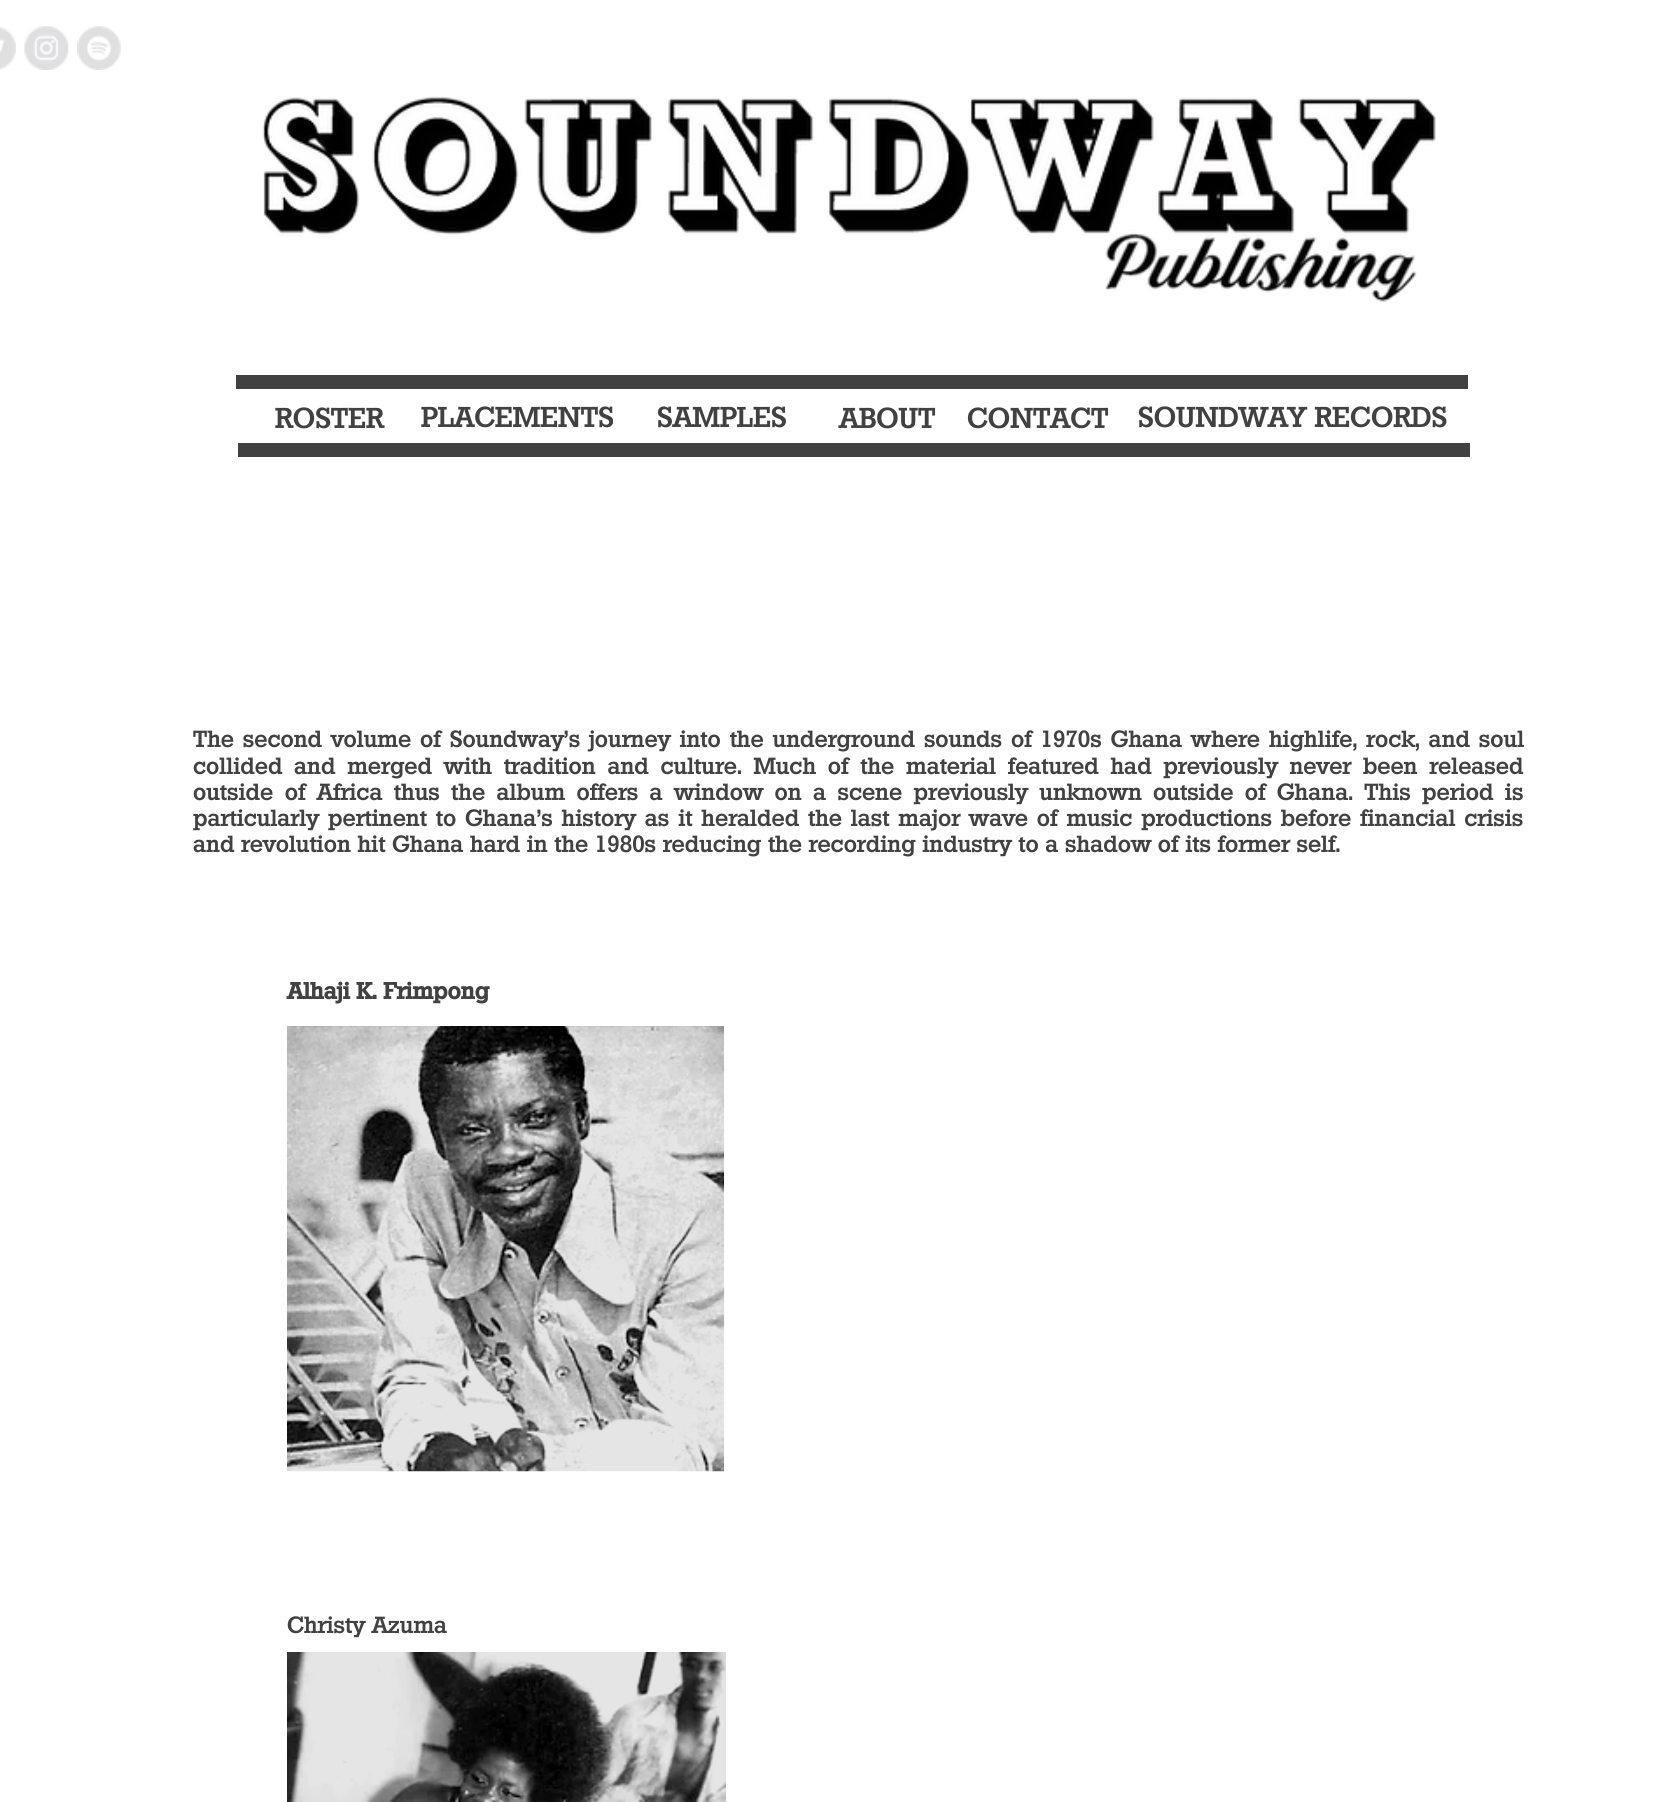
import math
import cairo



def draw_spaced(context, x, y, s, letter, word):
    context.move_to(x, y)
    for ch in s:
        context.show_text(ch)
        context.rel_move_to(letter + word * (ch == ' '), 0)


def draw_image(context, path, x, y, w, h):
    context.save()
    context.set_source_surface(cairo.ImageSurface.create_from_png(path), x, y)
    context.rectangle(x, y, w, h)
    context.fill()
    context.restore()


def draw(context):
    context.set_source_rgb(1, 1, 1)
    context.paint()
    draw_image(context, "images/1.png", 0, 26, 16, 44)
    draw_image(context, "images/2.png", 24, 26, 45, 44)
    draw_image(context, "images/3.png", 77, 26, 44, 44)
    draw_image(context, "images/4.png", 262, 96, 1174, 206)
    context.set_source_rgb(65 / 255, 65 / 255, 65 / 255)
    context.rectangle(236, 375, 1232, 14)
    context.fill()
    context.rectangle(238, 443, 1232, 14)
    context.fill()
    draw_image(context, "images/5.png", 287, 1026, 438, 446)
    draw_image(context, "images/6.png", 287, 1652, 439, 150)
    context.select_font_face("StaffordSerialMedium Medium")
    context.set_font_size(28)
    context.move_to(275, 428)
    context.show_text("ROSTER")
    context.move_to(421, 427)
    context.show_text("PLACEMENTS")
    context.move_to(657, 427)
    context.show_text("SAMPLES")
    context.move_to(839, 428)
    context.show_text("ABOUT")
    context.move_to(967, 428)
    context.show_text("CONTACT")
    context.move_to(1138, 427)
    context.show_text("SOUNDWAY RECORDS")
    context.set_font_size(22.75)
    draw_spaced(context, 193, 747, "The second volume of Soundway’s journey into the underground sounds of 1970s Ghana where highlife, rock, and soul", 0, 2.25)
    draw_spaced(context, 193, 774, "collided and merged with tradition and culture. Much of the material featured had previously never been released", 0, 5.1)
    draw_spaced(context, 193, 800, "outside of Africa thus the album offers a window on a scene previously unknown outside of Ghana. This period is", 0, 4.75)
    draw_spaced(context, 193, 826, "particularly pertinent to Ghana’s history as it heralded the last major wave of music productions before financial crisis", 0, 2.25)
    context.move_to(193, 852)
    context.show_text("and revolution hit Ghana hard in the 1980s reducing the recording industry to a shadow of its former self.")
    context.select_font_face("StaffordSerialMedium", cairo.FontSlant.NORMAL, cairo.FontWeight.BOLD)
    context.move_to(287, 999)
    context.show_text("Alhaji K. Frimpong")
    context.select_font_face("StaffordSerialMedium Medium")
    context.move_to(287, 1633)
    context.show_text("Christy Azuma")


surface = cairo.ImageSurface(cairo.Format.RGB24, 1672, 1802)
context = cairo.Context(surface)
options = cairo.FontOptions()
options.set_hint_metrics(cairo.HintMetrics.OFF)
options.set_hint_style(cairo.HintStyle.NONE)
context.set_font_options(options)
context.set_miter_limit(4)
draw(context)
surface.write_to_png("out.png")
